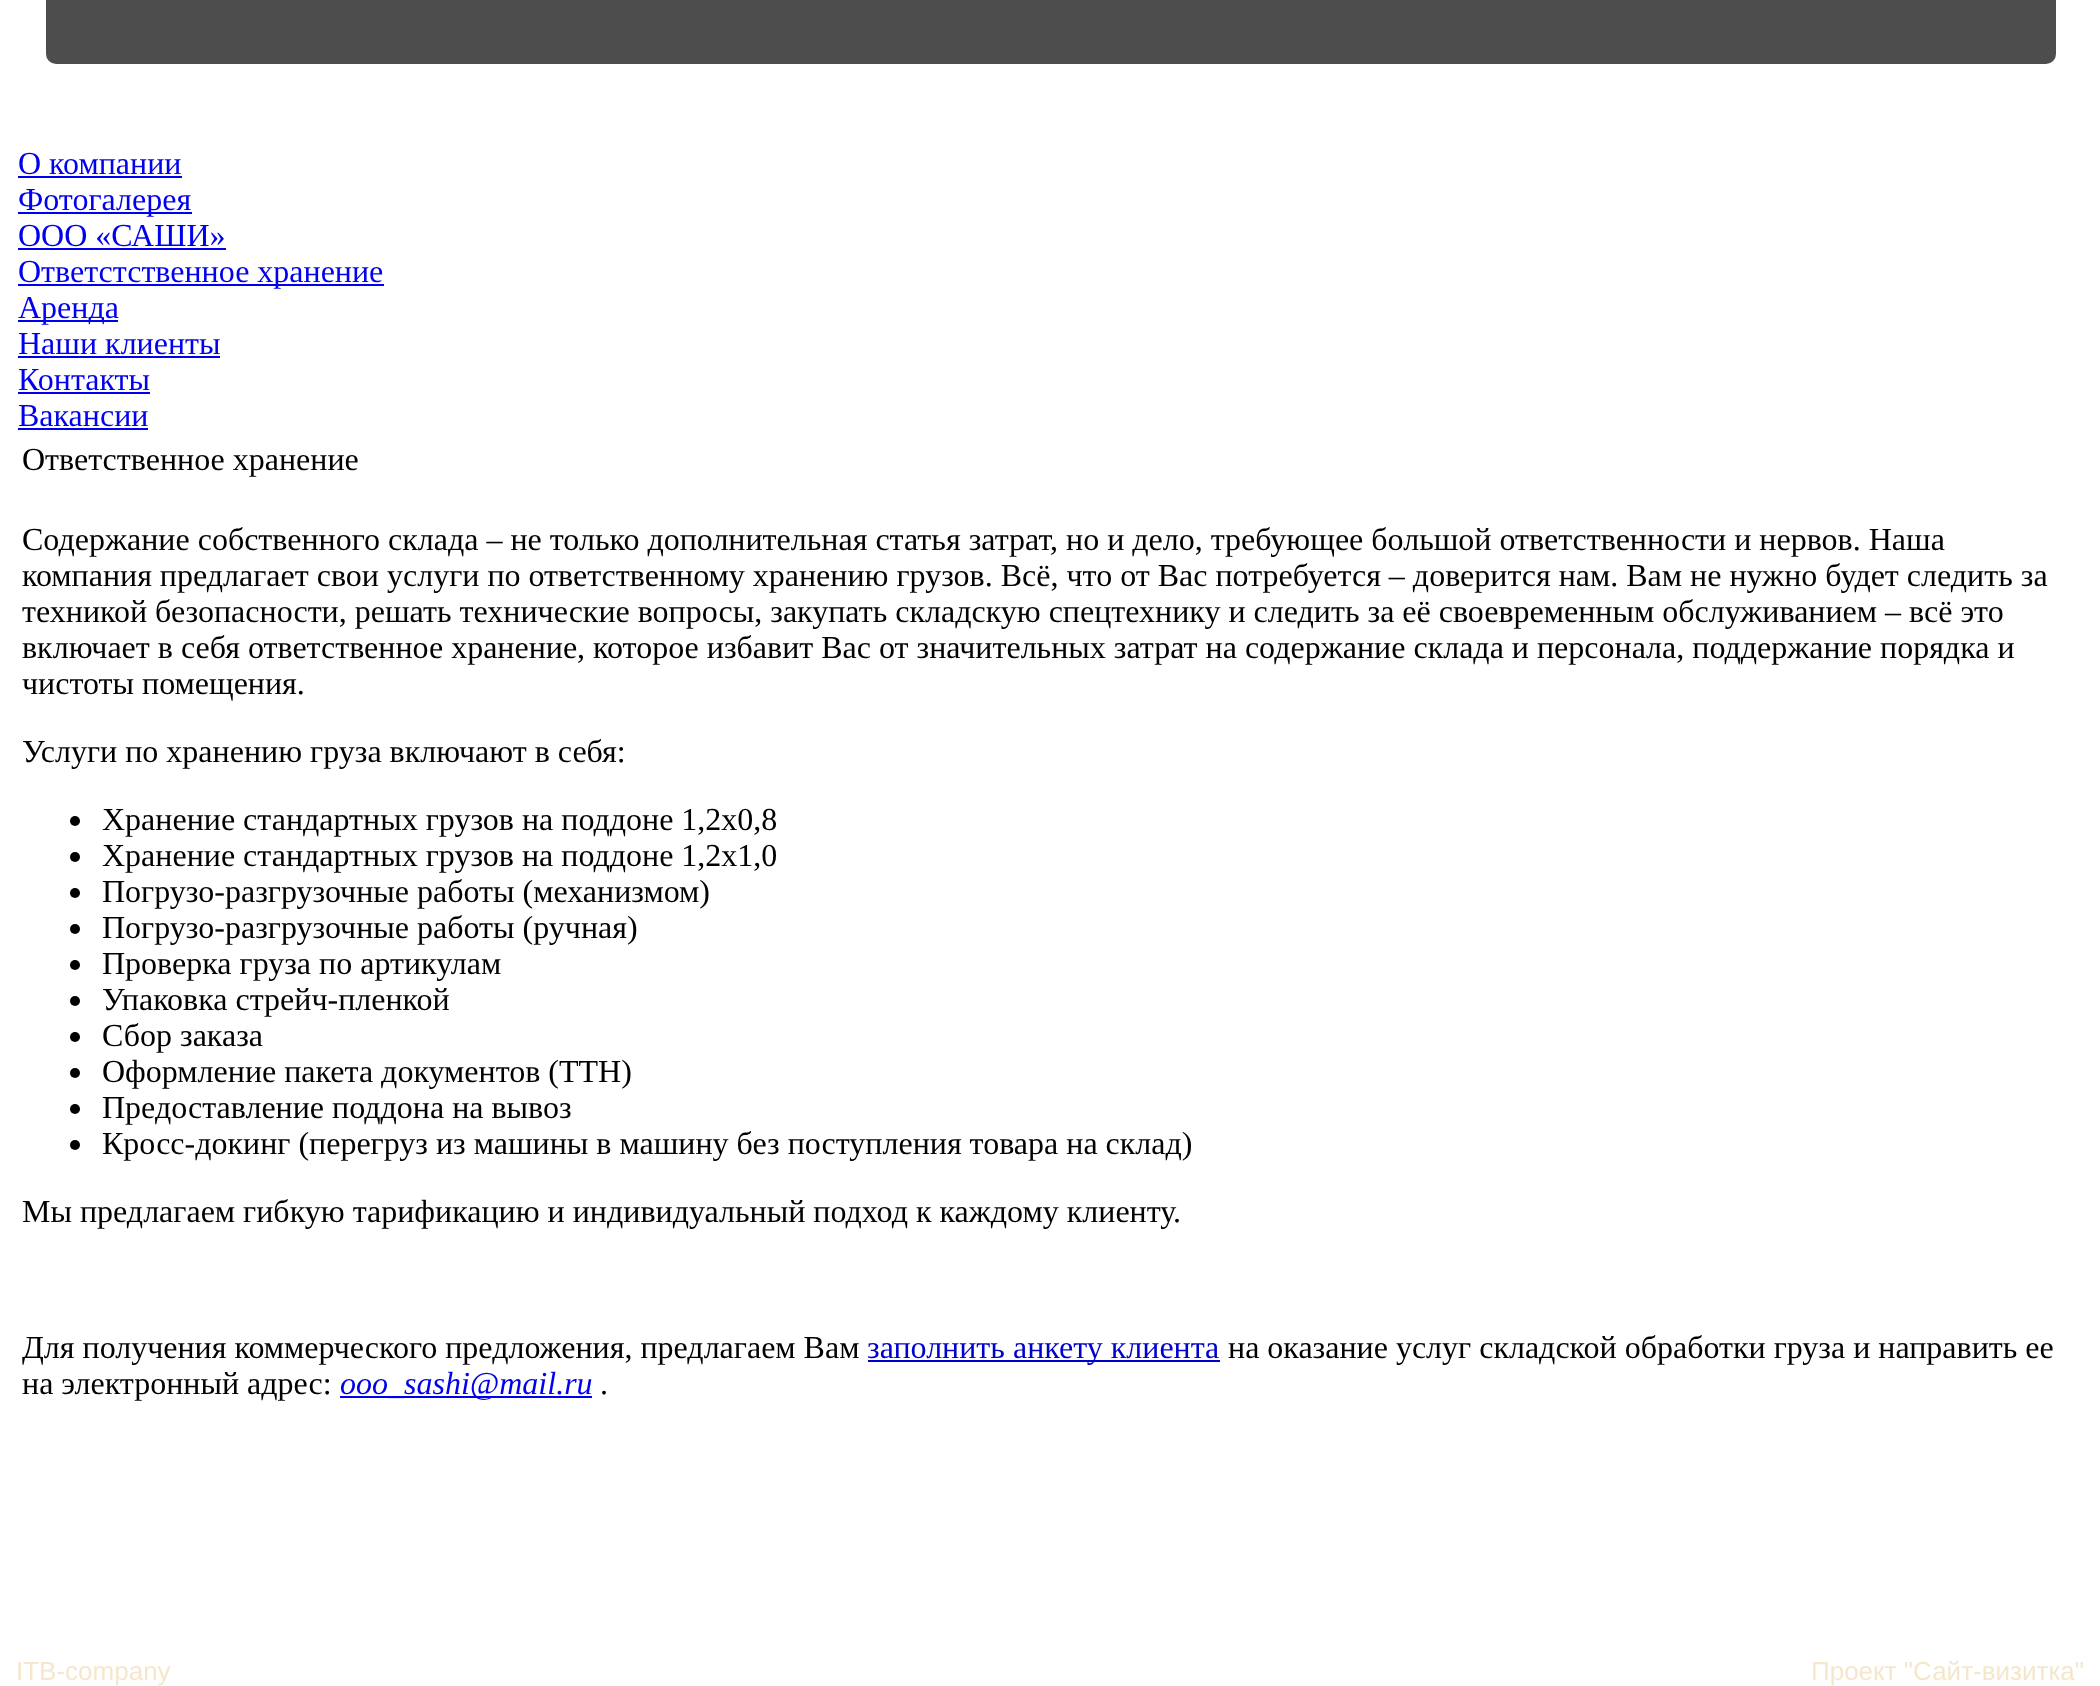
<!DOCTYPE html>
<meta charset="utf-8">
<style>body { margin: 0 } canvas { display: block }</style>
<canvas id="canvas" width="2100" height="1686"></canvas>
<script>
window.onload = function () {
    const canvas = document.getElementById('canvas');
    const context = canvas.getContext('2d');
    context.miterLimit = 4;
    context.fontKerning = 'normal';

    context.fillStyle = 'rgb(255, 255, 255)';
    context.fillRect(0, 0, 2100, 1686);
    context.fillStyle = 'rgb(77, 77, 77)';
    context.beginPath();
    context.roundRect(46, -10, 2010, 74, 10);
    context.fill();
    context.fillStyle = 'rgb(0, 0, 238)';
    context.fillRect(18, 176, 164, 2);
    context.fillRect(18, 212, 174, 2);
    context.fillRect(18, 248, 208, 2);
    context.fillRect(18, 284, 366, 2);
    context.fillRect(18, 320, 100, 2);
    context.fillRect(18, 356, 202, 2);
    context.fillRect(18, 392, 132, 2);
    context.fillRect(18, 428, 130, 2);
    context.fillStyle = 'rgb(0, 0, 0)';
    context.beginPath();
    context.arc(75, 821, 5, 0, 2 * Math.PI);
    context.fill();
    context.beginPath();
    context.arc(75, 857, 5, 0, 2 * Math.PI);
    context.fill();
    context.beginPath();
    context.arc(75, 893, 5, 0, 2 * Math.PI);
    context.fill();
    context.beginPath();
    context.arc(75, 929, 5, 0, 2 * Math.PI);
    context.fill();
    context.beginPath();
    context.arc(75, 965, 5, 0, 2 * Math.PI);
    context.fill();
    context.beginPath();
    context.arc(75, 1001, 5, 0, 2 * Math.PI);
    context.fill();
    context.beginPath();
    context.arc(75, 1037, 5, 0, 2 * Math.PI);
    context.fill();
    context.beginPath();
    context.arc(75, 1073, 5, 0, 2 * Math.PI);
    context.fill();
    context.beginPath();
    context.arc(75, 1109, 5, 0, 2 * Math.PI);
    context.fill();
    context.beginPath();
    context.arc(75, 1145, 5, 0, 2 * Math.PI);
    context.fill();
    context.fillStyle = 'rgb(0, 0, 204)';
    context.fillRect(868, 1360, 352, 2);
    context.fillStyle = 'rgb(0, 0, 238)';
    context.fillRect(340, 1396, 252, 2);
    context.font = '32px Liberation Serif';
    context.fillText('О компании', 18, 174);
    context.fillText('Фотогалерея', 18, 210);
    context.fillText('ООО «САШИ»', 18, 246);
    context.fillText('Ответстственное хранение', 18, 282);
    context.fillText('Аренда', 18, 318);
    context.fillText('Наши клиенты', 18, 354);
    context.fillText('Контакты', 18, 390);
    context.fillText('Вакансии', 18, 426);
    context.fillStyle = 'rgb(0, 0, 0)';
    context.fillText('Ответственное хранение', 22, 470);
    context.fillText('Содержание собственного склада – не только дополнительная статья затрат, но и дело, требующее большой ответственности и нервов. Наша', 22, 550);
    context.fillText('компания предлагает свои услуги по ответственному хранению грузов. Всё, что от Вас потребуется – доверится нам. Вам не нужно будет следить за', 22, 586);
    context.fillText('техникой безопасности, решать технические вопросы, закупать складскую спецтехнику и следить за её своевременным обслуживанием – всё это', 22, 622);
    context.fillText('включает в себя ответственное хранение, которое избавит Вас от значительных затрат на содержание склада и персонала, поддержание порядка и', 22, 658);
    context.fillText('чистоты помещения.', 22, 694);
    context.fillText('Услуги по хранению груза включают в себя:', 22, 762);
    context.fillText('Хранение стандартных грузов на поддоне 1,2х0,8', 102, 830);
    context.fillText('Хранение стандартных грузов на поддоне 1,2х1,0', 102, 866);
    context.fillText('Погрузо-разгрузочные работы (механизмом)', 102, 902);
    context.fillText('Погрузо-разгрузочные работы (ручная)', 102, 938);
    context.fillText('Проверка груза по артикулам', 102, 974);
    context.fillText('Упаковка стрейч-пленкой', 102, 1010);
    context.fillText('Сбор заказа', 102, 1046);
    context.fillText('Оформление пакета документов (ТТН)', 102, 1082);
    context.fillText('Предоставление поддона на вывоз', 102, 1118);
    context.fillText('Кросс-докинг (перегруз из машины в машину без поступления товара на склад)', 102, 1154);
    context.fillText('Мы предлагаем гибкую тарификацию и индивидуальный подход к каждому клиенту.', 22, 1222);
    context.fillText('Для получения коммерческого предложения, предлагаем Вам', 22, 1358);
    context.fillStyle = 'rgb(0, 0, 204)';
    context.fillText('заполнить анкету клиента', 867, 1358);
    context.fillStyle = 'rgb(0, 0, 0)';
    context.fillText('на оказание услуг складской обработки груза и направить ее', 1228, 1358);
    context.fillText('на электронный адрес:', 22, 1394);
    context.font = 'italic 32px Liberation Serif';
    context.fillStyle = 'rgb(0, 0, 238)';
    context.fillText('ooo_sashi@mail.ru', 340, 1394);
    context.font = '32px Liberation Serif';
    context.fillStyle = 'rgb(0, 0, 0)';
    context.fillText('.', 600, 1394);
    context.font = '26px Liberation Sans';
    context.fillStyle = 'rgb(245, 231, 204)';
    context.fillText('ITB-company', 16, 1680);
    context.fillText('Проект "Сайт-визитка"', 1811, 1680);
};
</script>
